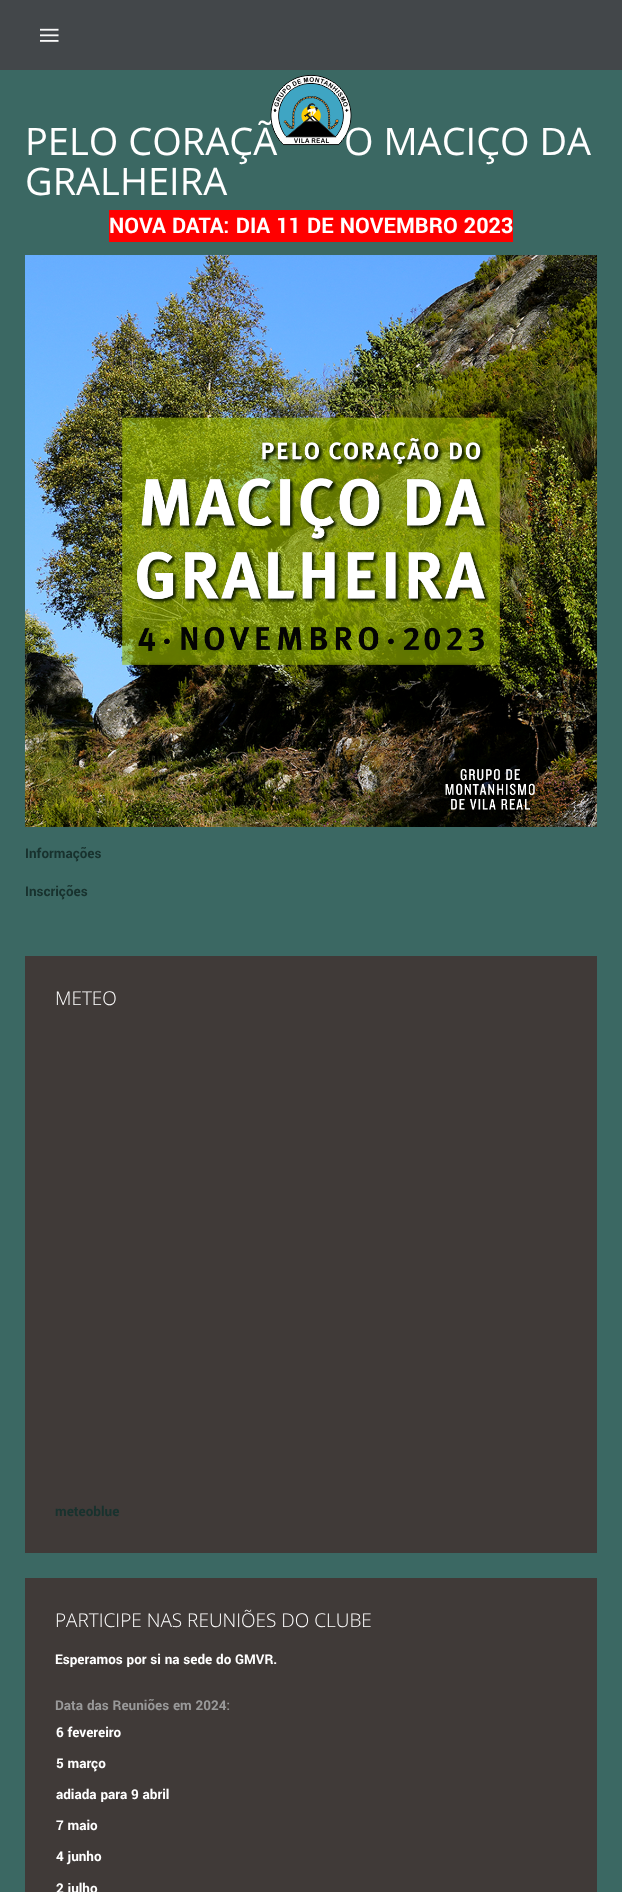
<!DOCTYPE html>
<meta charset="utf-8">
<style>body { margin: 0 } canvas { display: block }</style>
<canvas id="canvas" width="622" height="1892"></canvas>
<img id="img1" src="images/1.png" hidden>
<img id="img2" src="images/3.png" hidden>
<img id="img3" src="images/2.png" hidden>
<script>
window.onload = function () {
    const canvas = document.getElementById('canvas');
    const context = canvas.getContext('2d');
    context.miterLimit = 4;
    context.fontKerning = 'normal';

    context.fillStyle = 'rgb(67, 71, 74)';
    context.fillRect(0, 0, 622, 1892);
    context.drawImage(document.getElementById('img1'), 40, 28, 19, 14);
    context.fillStyle = 'rgb(59, 104, 99)';
    context.fillRect(0, 70, 622, 1822);
    context.fillStyle = 'rgb(255, 0, 0)';
    context.fillRect(109, 210, 404, 32);
    context.drawImage(document.getElementById('img2'), 25, 255, 572, 572);
    context.fillStyle = 'rgb(64, 58, 56)';
    context.fillRect(25, 956, 572, 597);
    context.fillRect(25, 1578, 572, 314);
    context.font = '38px Open Sans';
    context.fillStyle = 'rgb(255, 255, 255)';
    context.fillText('PELO CORAÇÃ', 25, 155);
    context.fillText('O MACIÇO DA', 344, 155);
    context.drawImage(document.getElementById('img3'), 270, 74, 82, 72);
    context.fillText('GRALHEIRA', 25, 195);
    context.font = 'bold 24px Yantramanav';
    context.fillText('NOVA DATA: DIA 11 DE NOVEMBRO 2023', 109, 233);
    context.font = 'bold 15px Yantramanav';
    context.fillStyle = 'rgb(24, 50, 46)';
    context.fillText('Informações', 25, 858);
    context.fillText('Inscrições', 25, 896);
    context.font = '300 19px Open Sans';
    context.fillStyle = 'rgb(255, 255, 255)';
    context.fillText('METEO', 55, 1005);
    context.font = 'bold 15px Yantramanav';
    context.fillStyle = 'rgb(24, 50, 46)';
    context.fillText('meteoblue', 55, 1516);
    context.font = '300 19px Open Sans';
    context.fillStyle = 'rgb(255, 255, 255)';
    context.fillText('PARTICIPE NAS REUNIÕES DO CLUBE', 55, 1627);
    context.font = 'bold 15px Yantramanav';
    context.fillText('Esperamos por si na sede do GMVR.', 55, 1664);
    context.fillStyle = 'rgb(153, 153, 153)';
    context.fillText('Data das Reuniões em 2024:', 55, 1710);
    context.fillStyle = 'rgb(255, 255, 255)';
    context.fillText('6 fevereiro', 56, 1737);
    context.fillText('5 março', 56, 1768);
    context.fillText('adiada para 9 abril', 56, 1799);
    context.fillText('7 maio', 56, 1830);
    context.fillText('4 junho', 56, 1861);
    context.fillText('2 julho', 56, 1893);
};
</script>
